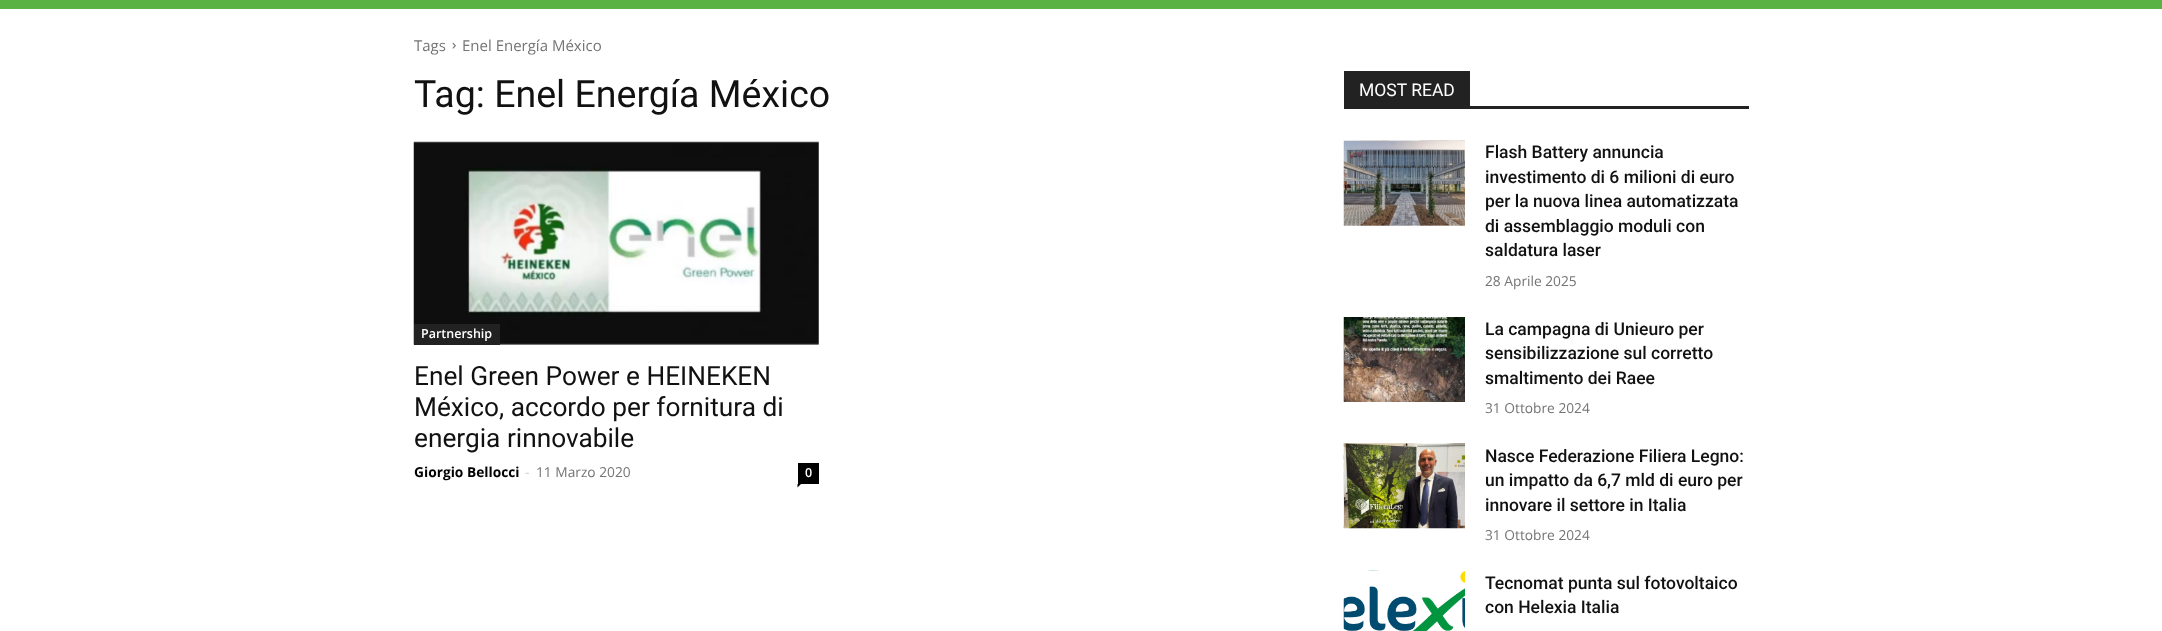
<!DOCTYPE html>
<meta charset="utf-8">
<style>body { margin: 0 } canvas { display: block }</style>
<canvas id="canvas" width="2162" height="631"></canvas>
<img id="img1" src="images/1.png" hidden>
<img id="img2" src="images/2.png" hidden>
<img id="img3" src="images/3.png" hidden>
<img id="img4" src="images/4.png" hidden>
<img id="img5" src="images/5.png" hidden>
<img id="img6" src="images/6.png" hidden>
<script>
window.onload = function () {
    const canvas = document.getElementById('canvas');
    const context = canvas.getContext('2d');
    context.miterLimit = 4;
    context.fontKerning = 'normal';

    context.fillStyle = 'rgb(255, 255, 255)';
    context.fillRect(0, 0, 2162, 631);
    context.fillStyle = 'rgb(91, 178, 68)';
    context.fillRect(0, 0, 2162, 9);
    context.drawImage(document.getElementById('img1'), 452, 42, 4, 7);
    context.drawImage(document.getElementById('img2'), 413, 141, 406, 204);
    context.fillStyle = 'rgb(34, 34, 34)';
    context.fillRect(414, 324, 86, 21);
    context.fillStyle = 'rgb(0, 0, 0)';
    context.fillRect(798, 463, 21, 21);
    context.beginPath();
    context.moveTo(797.5, 484);
    context.lineTo(801, 484);
    context.lineTo(797.5, 487.5);
    context.closePath();
    context.fill();
    context.fillStyle = 'rgb(34, 34, 34)';
    context.fillRect(1344, 106, 405, 3);
    context.fillRect(1344, 71, 126, 35);
    context.drawImage(document.getElementById('img3'), 1343, 140, 122, 86);
    context.drawImage(document.getElementById('img4'), 1343, 317, 122, 85);
    context.drawImage(document.getElementById('img5'), 1343, 443, 122, 86);
    context.drawImage(document.getElementById('img6'), 1343, 570, 122, 61);
    context.font = '15px Open Sans';
    context.fillStyle = 'rgb(116, 116, 116)';
    context.fillText('Tags', 414, 51);
    context.fillText('Enel Energía México', 462, 51);
    context.font = '37.5px Roboto';
    context.fillStyle = 'rgb(17, 17, 17)';
    context.fillText('Tag: Enel Energía México', 414, 107);
    context.font = '600 12.5px Open Sans';
    context.fillStyle = 'rgb(255, 255, 255)';
    context.fillText('Partnership', 421, 338);
    context.font = '26.25px Roboto';
    context.fillStyle = 'rgb(17, 17, 17)';
    context.fillText('Enel Green Power e HEINEKEN', 414, 385);
    context.fillText('México, accordo per fornitura di', 414, 416);
    context.fillText('energia rinnovabile', 414, 447);
    context.font = 'bold 13.75px Open Sans';
    context.fillStyle = 'rgb(0, 0, 0)';
    context.fillText('Giorgio Bellocci', 414, 477);
    context.font = '13.75px Open Sans';
    context.fillStyle = 'rgb(204, 204, 204)';
    context.fillText('-', 525, 477);
    context.fillStyle = 'rgb(116, 116, 116)';
    context.fillText('11 Marzo 2020', 536, 477);
    context.font = '600 12.5px Open Sans';
    context.fillStyle = 'rgb(255, 255, 255)';
    context.fillText('0', 805, 477);
    context.font = '17.5px Roboto';
    context.fillText('MOST READ', 1359, 96);
    context.font = '500 17.5px Roboto';
    context.fillStyle = 'rgb(17, 17, 17)';
    context.fillText('Flash Battery annuncia', 1485, 158);
    context.fillText('investimento di 6 milioni di euro', 1485, 183);
    context.fillText('per la nuova linea automatizzata', 1485, 207);
    context.fillText('di assemblaggio moduli con', 1485, 232);
    context.fillText('saldatura laser', 1485, 256);
    context.font = '13.75px Open Sans';
    context.fillStyle = 'rgb(116, 116, 116)';
    context.fillText('28 Aprile 2025', 1485, 286);
    context.font = '500 17.5px Roboto';
    context.fillStyle = 'rgb(17, 17, 17)';
    context.fillText('La campagna di Unieuro per', 1485, 335);
    context.fillText('sensibilizzazione sul corretto', 1485, 359);
    context.fillText('smaltimento dei Raee', 1485, 384);
    context.font = '13.75px Open Sans';
    context.fillStyle = 'rgb(116, 116, 116)';
    context.fillText('31 Ottobre 2024', 1485, 413);
    context.font = '500 17.5px Roboto';
    context.fillStyle = 'rgb(17, 17, 17)';
    context.fillText('Nasce Federazione Filiera Legno:', 1485, 462);
    context.fillText('un impatto da 6,7 mld di euro per', 1485, 486);
    context.fillText('innovare il settore in Italia', 1485, 511);
    context.font = '13.75px Open Sans';
    context.fillStyle = 'rgb(116, 116, 116)';
    context.fillText('31 Ottobre 2024', 1485, 540);
    context.font = '500 17.5px Roboto';
    context.fillStyle = 'rgb(17, 17, 17)';
    context.fillText('Tecnomat punta sul fotovoltaico', 1485, 589);
    context.fillText('con Helexia Italia', 1485, 613);
};
</script>
